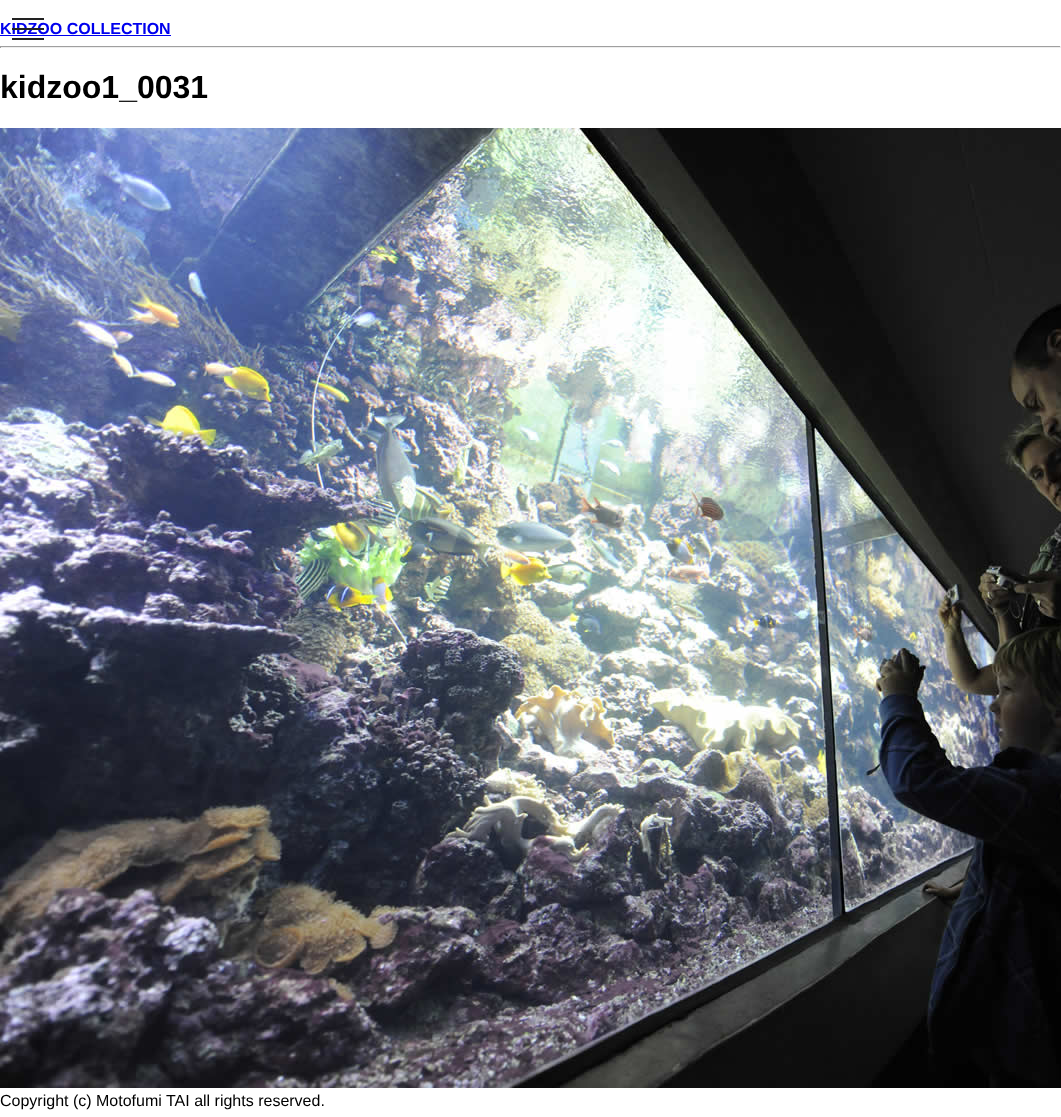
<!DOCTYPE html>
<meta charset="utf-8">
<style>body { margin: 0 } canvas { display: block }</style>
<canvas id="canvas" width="1061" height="1117"></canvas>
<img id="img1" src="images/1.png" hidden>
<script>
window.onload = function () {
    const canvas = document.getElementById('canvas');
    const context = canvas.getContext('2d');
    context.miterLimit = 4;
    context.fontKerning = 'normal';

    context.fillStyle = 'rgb(255, 255, 255)';
    context.fillRect(0, 0, 1061, 1117);
    context.fillStyle = 'rgb(34, 34, 34)';
    context.fillRect(12, 18, 32, 2);
    context.fillRect(12, 38, 32, 2);
    context.fillStyle = 'rgb(0, 0, 238)';
    context.fillRect(0, 35, 171, 1);
    context.fillStyle = 'rgb(159, 159, 159)';
    context.fillRect(0, 46, 1061, 1);
    context.fillStyle = 'rgb(238, 238, 238)';
    context.fillRect(1060, 46, 1, 2);
    context.fillRect(0, 47, 1061, 1);
    context.fillStyle = 'rgb(159, 159, 159)';
    context.fillRect(0, 46, 1, 2);
    context.drawImage(document.getElementById('img1'), 0, 128, 1061, 960);
    context.font = 'bold 16px Liberation Sans';
    context.fillStyle = 'rgb(0, 0, 238)';
    context.fillText('KIDZOO COLLECTION', 0, 34);
    context.fillStyle = 'rgb(34, 34, 34)';
    context.fillRect(12, 28, 32, 2);
    context.font = 'bold 32px Liberation Sans';
    context.fillStyle = 'rgb(0, 0, 0)';
    context.fillText('kidzoo1_0031', 0, 98);
    context.font = '16px Liberation Sans';
    context.fillText('Copyright (c) Motofumi TAI all rights reserved.', 0, 1106);
};
</script>
